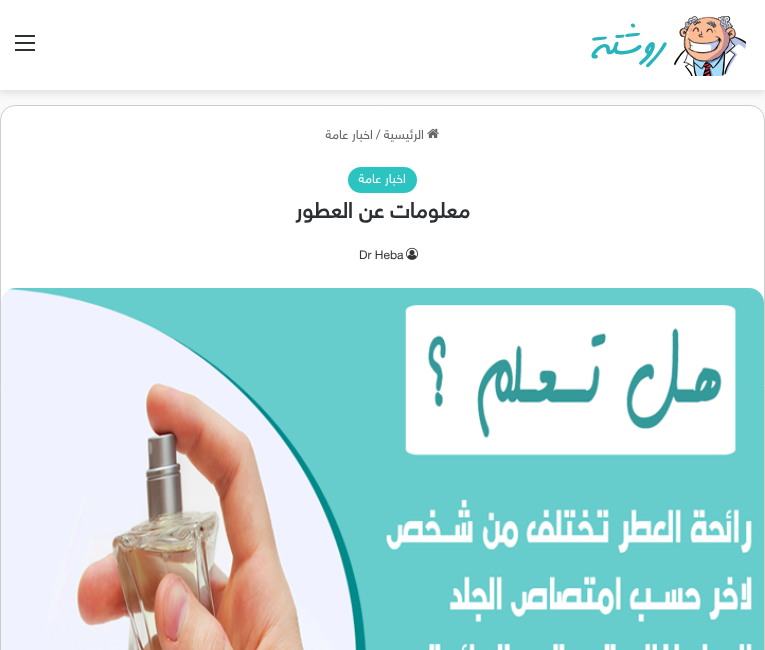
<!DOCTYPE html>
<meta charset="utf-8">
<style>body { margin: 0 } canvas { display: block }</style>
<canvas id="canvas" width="765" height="650"></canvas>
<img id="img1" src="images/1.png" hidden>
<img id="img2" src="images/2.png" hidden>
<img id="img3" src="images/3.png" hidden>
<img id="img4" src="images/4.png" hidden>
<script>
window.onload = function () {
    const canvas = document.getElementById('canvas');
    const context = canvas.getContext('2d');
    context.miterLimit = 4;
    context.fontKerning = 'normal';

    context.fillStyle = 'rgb(249, 249, 249)';
    context.fillRect(0, 0, 765, 650);
    context.fillStyle = 'rgba(0, 0, 0, 0.1)';
    context.filter = 'blur(3.5px)';
    context.beginPath();
    context.rect(0, 3, 765, 90);
    context.fill();
    context.filter = 'none';
    context.fillStyle = 'rgb(255, 255, 255)';
    context.fillRect(0, 0, 765, 90);
    context.drawImage(document.getElementById('img1'), 591, 16, 155, 60);
    context.fillStyle = 'rgb(44, 47, 52)';
    context.fillRect(15, 42, 20, 2);
    context.fillRect(15, 35, 20, 2);
    context.fillRect(15, 49, 20, 2);
    context.fillStyle = 'rgb(255, 255, 255)';
    context.beginPath();
    context.roundRect(0.5, 105.5, 764, 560, 14.5);
    context.fill();
    context.strokeStyle = 'rgb(204, 204, 204)';
    context.stroke();
    context.drawImage(document.getElementById('img2'), 427, 128, 12, 11);
    context.fillStyle = 'rgb(43, 196, 193)';
    context.beginPath();
    context.roundRect(348, 167, 69, 26, 13);
    context.fill();
    context.drawImage(document.getElementById('img3'), 406, 247, 12, 13);
    context.drawImage(document.getElementById('img4'), 1, 288, 763, 362);
    context.direction = 'rtl';
    context.font = '13px "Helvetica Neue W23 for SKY"';
    context.fillStyle = 'rgb(102, 102, 102)';
    context.fillText('الرئيسية', 424, 139);
    context.direction = 'ltr';
    context.fillText('/', 376, 139);
    context.direction = 'rtl';
    context.fillText('اخبار عامة', 373, 139);
    context.fillStyle = 'rgb(255, 255, 255)';
    context.fillText('اخبار عامة', 406, 183);
    context.font = 'bold 22px "Helvetica Neue W23 for SKY"';
    context.fillStyle = 'rgb(44, 47, 52)';
    context.fillText('معلومات عن العطور', 470, 218);
    context.direction = 'ltr';
    context.font = '12px "Helvetica Neue W23 for SKY"';
    context.fillStyle = 'rgb(51, 51, 51)';
    context.fillText('Dr Heba', 359, 259);
};
</script>
